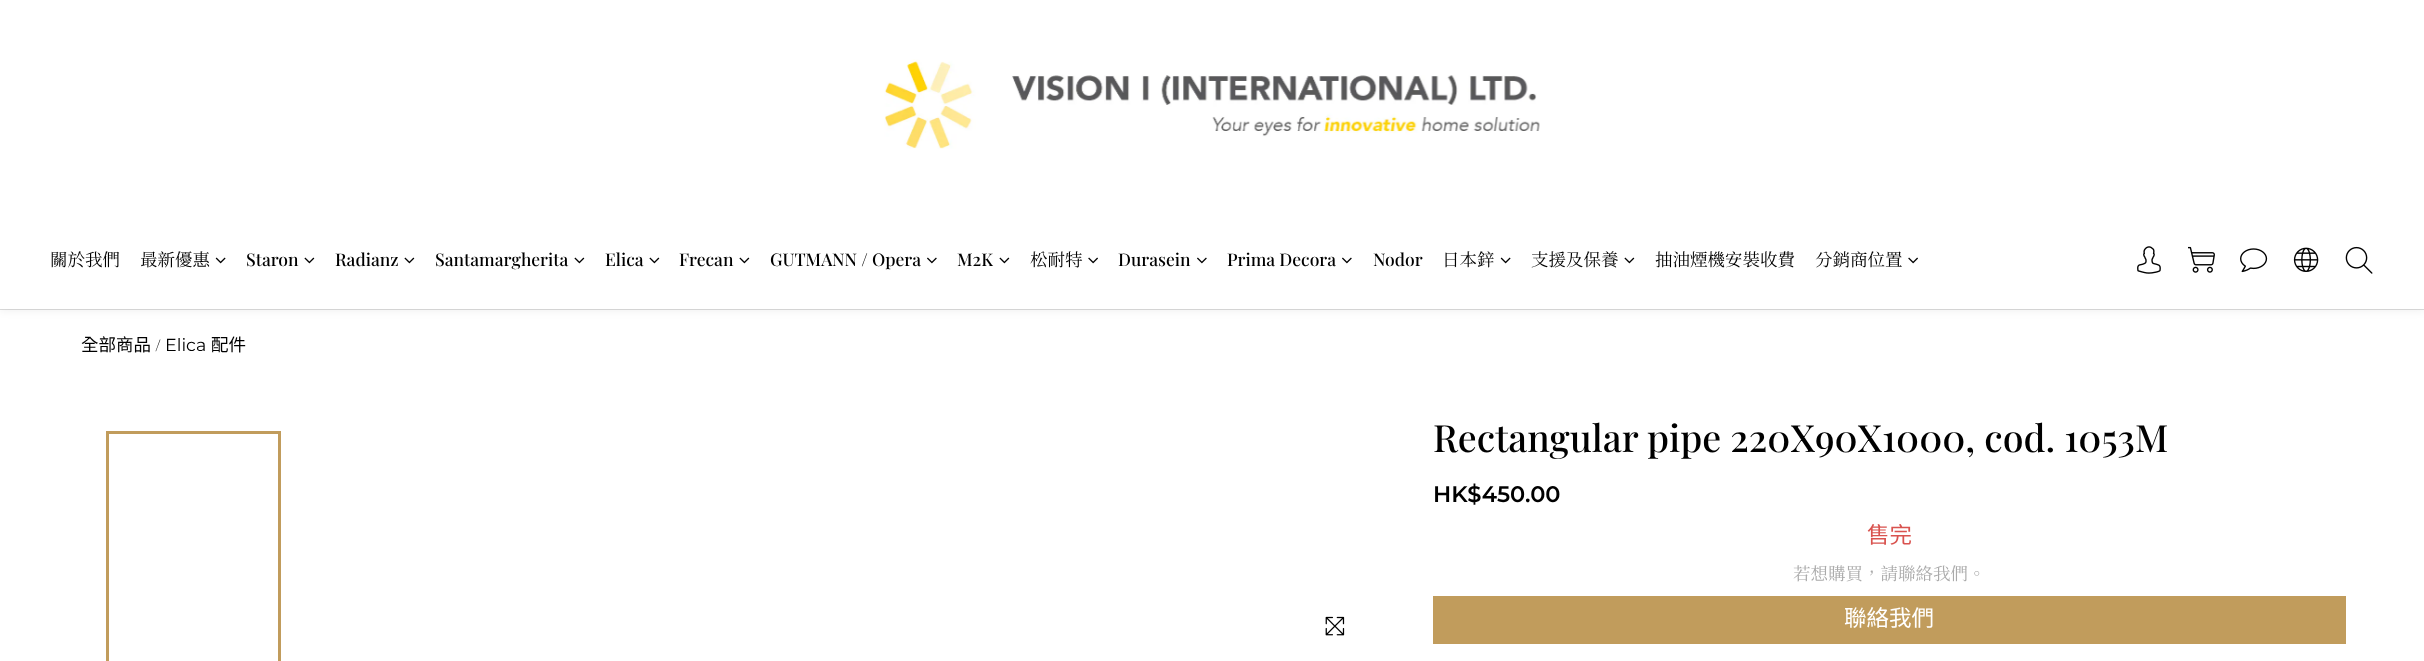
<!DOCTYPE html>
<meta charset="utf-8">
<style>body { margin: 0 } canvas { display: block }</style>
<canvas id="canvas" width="2424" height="661"></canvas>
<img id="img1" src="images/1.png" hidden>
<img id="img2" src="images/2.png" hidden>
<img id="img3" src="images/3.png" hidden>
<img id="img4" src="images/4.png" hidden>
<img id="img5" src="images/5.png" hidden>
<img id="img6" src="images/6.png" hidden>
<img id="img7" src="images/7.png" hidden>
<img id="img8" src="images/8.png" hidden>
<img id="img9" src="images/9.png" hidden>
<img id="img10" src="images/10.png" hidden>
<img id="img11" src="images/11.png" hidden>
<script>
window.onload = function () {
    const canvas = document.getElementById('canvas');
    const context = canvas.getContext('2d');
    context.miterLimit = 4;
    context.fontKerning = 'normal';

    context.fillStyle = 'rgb(255, 255, 255)';
    context.fillRect(0, 0, 2424, 661);
    context.fillStyle = 'rgb(221, 221, 221)';
    context.fillRect(0, 309, 2424, 1);
    context.fillStyle = 'rgba(0, 0, 0, 0.06)';
    context.filter = 'blur(4px)';
    context.beginPath();
    context.rect(0, 3, 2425, 308);
    context.fill();
    context.filter = 'none';
    context.fillStyle = 'rgb(255, 255, 255)';
    context.fillRect(0, 0, 2424, 309);
    context.drawImage(document.getElementById('img1'), 884, 59, 656, 90);
    context.drawImage(document.getElementById('img2'), 215, 257, 11, 7);
    context.drawImage(document.getElementById('img3'), 304, 257, 11, 7);
    context.drawImage(document.getElementById('img3'), 404, 257, 11, 7);
    context.drawImage(document.getElementById('img3'), 574, 257, 11, 7);
    context.drawImage(document.getElementById('img3'), 649, 257, 11, 7);
    context.drawImage(document.getElementById('img3'), 739, 257, 11, 7);
    context.drawImage(document.getElementById('img4'), 927, 257, 10, 7);
    context.drawImage(document.getElementById('img3'), 999, 257, 11, 7);
    context.drawImage(document.getElementById('img5'), 1088, 257, 10, 7);
    context.drawImage(document.getElementById('img4'), 1197, 257, 10, 7);
    context.drawImage(document.getElementById('img4'), 1342, 257, 10, 7);
    context.drawImage(document.getElementById('img2'), 1500, 257, 11, 7);
    context.drawImage(document.getElementById('img3'), 1624, 257, 11, 7);
    context.drawImage(document.getElementById('img5'), 1908, 257, 10, 7);
    context.drawImage(document.getElementById('img6'), 2137, 246, 24, 28);
    context.drawImage(document.getElementById('img7'), 2188, 246, 27, 27);
    context.drawImage(document.getElementById('img8'), 2240, 248, 28, 25);
    context.drawImage(document.getElementById('img9'), 2293, 247, 26, 25);
    context.drawImage(document.getElementById('img10'), 2345, 246, 28, 28);
    context.strokeStyle = 'rgb(193, 156, 92)';
    context.lineWidth = 3;
    context.strokeRect(107.5, 432.5, 172, 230);
    context.drawImage(document.getElementById('img11'), 1325, 616, 20, 20);
    context.fillStyle = 'rgb(193, 156, 92)';
    context.fillRect(1433, 596, 913, 48);
    context.font = '17.5px Noto Serif TC';
    context.fillStyle = 'rgb(0, 0, 0)';
    context.fillText('關於我們', 50, 266);
    context.fillText('最新優惠', 140, 266);
    context.font = '500 17.5px Playfair Display';
    context.fillText('Staron', 246, 266);
    context.fillText('Radianz', 335, 266);
    context.fillText('Santamargherita', 435, 266);
    context.fillText('Elica', 605, 266);
    context.fillText('Frecan', 679, 266);
    context.fillText('GUTMANN / Opera', 770, 266);
    context.fillText('M2K', 957, 266);
    context.font = '17.5px Noto Serif TC';
    context.fillText('松耐特', 1030, 266);
    context.font = '500 17.5px Playfair Display';
    context.fillText('Durasein', 1118, 266);
    context.fillText('Prima Decora', 1227, 266);
    context.fillText('Nodor', 1373, 266);
    context.font = '17.5px Noto Serif TC';
    context.fillText('日本鋅', 1442, 266);
    context.fillText('支援及保養', 1531, 266);
    context.fillText('抽油煙機安裝收費', 1655, 266);
    context.fillText('分銷商位置', 1815, 266);
    context.font = '17.5px Noto Sans TC';
    context.fillText('全部商品', 81, 351);
    context.font = '500 16px Playfair Display';
    context.fillText('/', 155, 351);
    context.font = '17.5px Montserrat';
    context.fillText('Elica', 165, 351);
    context.font = '17.5px Noto Sans TC';
    context.fillText('配件', 211, 351);
    context.font = '500 37.5px Playfair Display';
    context.fillText('Rectangular pipe 220X90X1000, cod. 1053M', 1433, 452);
    context.font = '600 22.5px Montserrat';
    context.fillText('HK$450.00', 1433, 502);
    context.font = '22.5px Noto Sans TC';
    context.fillStyle = 'rgb(217, 83, 79)';
    context.fillText('售完', 1867, 543);
    context.font = '17.5px Noto Serif TC';
    context.fillStyle = 'rgb(170, 170, 170)';
    context.fillText('若想購買，請聯絡我們。', 1793, 580);
    context.font = '22.5px Noto Sans TC';
    context.fillStyle = 'rgb(255, 255, 255)';
    context.fillText('聯絡我們', 1844, 626);
};
</script>
